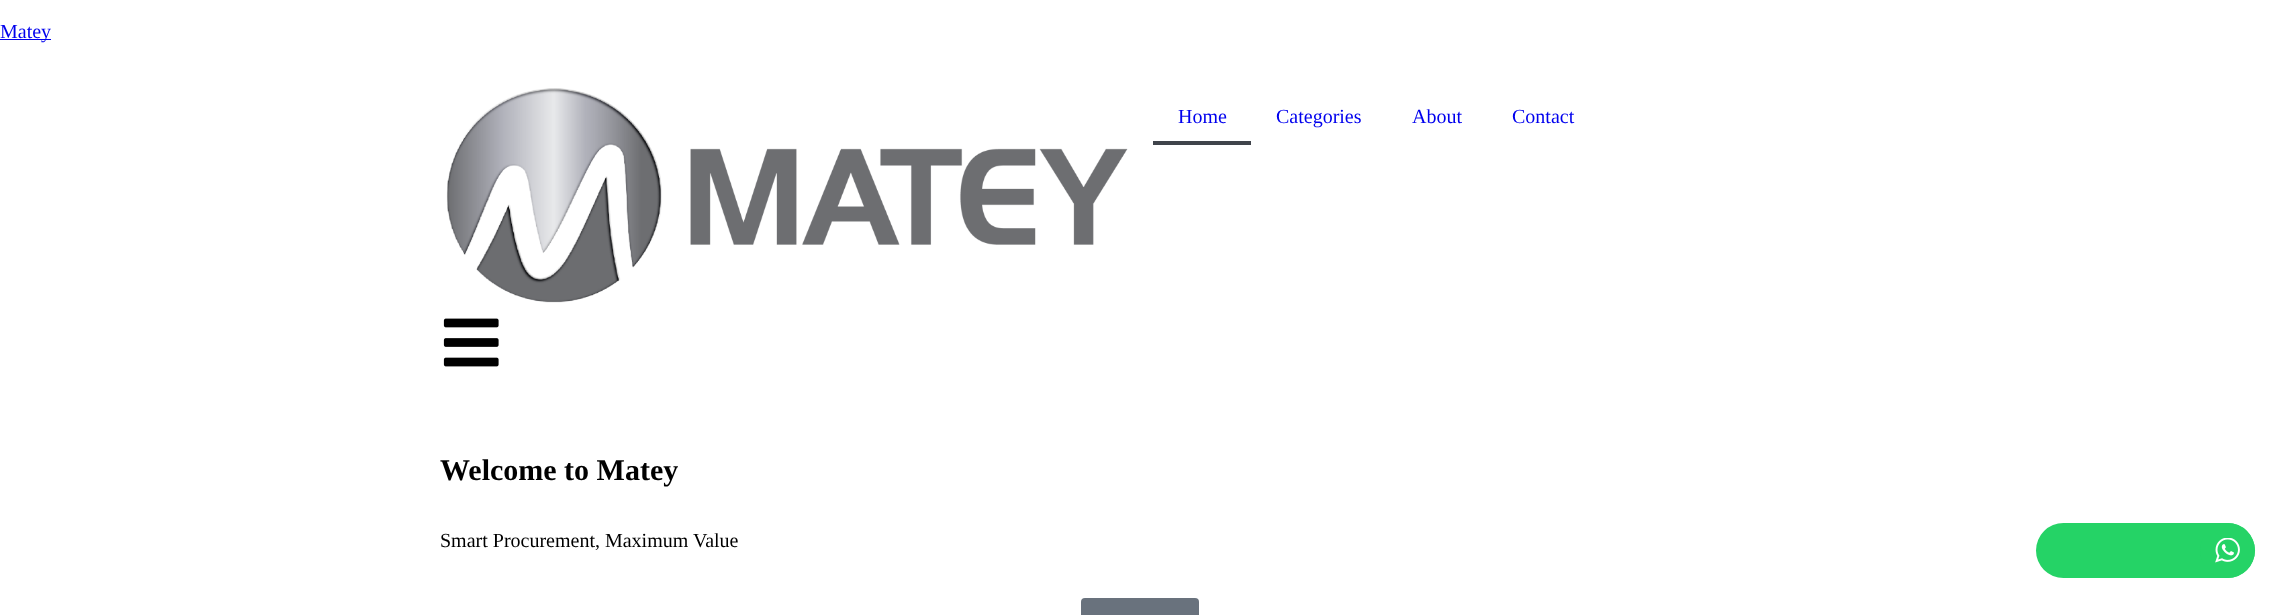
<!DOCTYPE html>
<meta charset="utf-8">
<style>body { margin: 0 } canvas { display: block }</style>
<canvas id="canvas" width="2280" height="615"></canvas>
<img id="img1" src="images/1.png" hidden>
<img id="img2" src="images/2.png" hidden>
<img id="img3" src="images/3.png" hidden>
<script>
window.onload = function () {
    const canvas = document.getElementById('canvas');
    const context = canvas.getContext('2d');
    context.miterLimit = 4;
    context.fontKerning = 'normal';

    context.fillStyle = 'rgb(255, 255, 255)';
    context.fillRect(0, 0, 2280, 615);
    context.fillStyle = 'rgb(0, 0, 238)';
    context.fillRect(0, 39, 51, 1);
    context.drawImage(document.getElementById('img1'), 446, 88, 682, 215);
    context.drawImage(document.getElementById('img2'), 443, 318, 56, 49);
    context.fillStyle = 'rgb(63, 68, 75)';
    context.fillRect(1153, 141, 98, 4);
    context.fillStyle = 'rgb(105, 114, 125)';
    context.beginPath();
    context.roundRect(1081, 598, 118, 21, 4);
    context.fill();
    context.fillStyle = 'rgb(37, 211, 102)';
    context.beginPath();
    context.roundRect(2036, 523, 219, 55, 27.5);
    context.fill();
    context.beginPath();
    context.arc(2227.5, 550.5, 27.5, 0, 2 * Math.PI);
    context.fill();
    context.drawImage(document.getElementById('img3'), 2215, 538, 25, 25);
    context.font = '20px Liberation Serif';
    context.fillStyle = 'rgb(0, 0, 238)';
    context.fillText('Matey', 0, 38);
    context.fillText('Home', 1178, 123);
    context.fillText('Categories', 1276, 123);
    context.fillText('About', 1412, 123);
    context.fillText('Contact', 1512, 123);
    context.font = 'bold 30px Liberation Serif';
    context.fillStyle = 'rgb(0, 0, 0)';
    context.fillText('Welcome to Matey', 440, 480);
    context.font = '20px Liberation Serif';
    context.fillText('Smart Procurement, Maximum Value', 440, 547);
};
</script>
